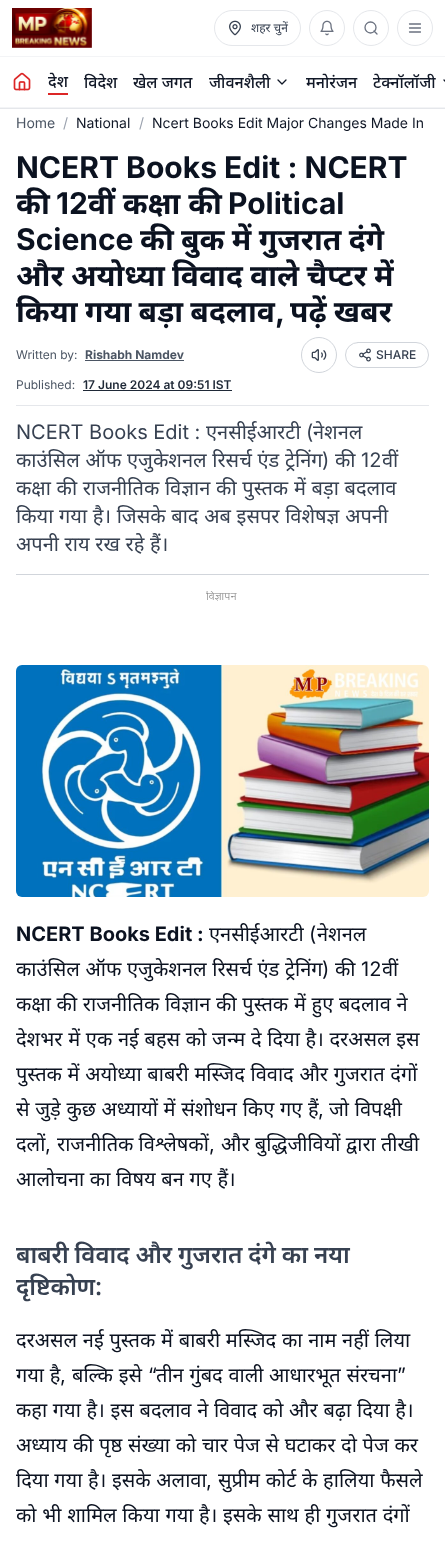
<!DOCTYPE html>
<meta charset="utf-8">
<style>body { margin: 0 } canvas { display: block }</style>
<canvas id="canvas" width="445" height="1548"></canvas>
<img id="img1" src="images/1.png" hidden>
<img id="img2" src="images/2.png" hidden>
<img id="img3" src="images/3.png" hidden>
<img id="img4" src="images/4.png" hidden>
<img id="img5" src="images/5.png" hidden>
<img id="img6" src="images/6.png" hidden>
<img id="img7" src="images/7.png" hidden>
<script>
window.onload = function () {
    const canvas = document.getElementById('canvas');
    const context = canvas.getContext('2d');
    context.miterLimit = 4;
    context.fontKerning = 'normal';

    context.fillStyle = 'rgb(255, 255, 255)';
    context.fillRect(0, 0, 445, 1548);
    context.fillStyle = 'rgb(229, 231, 235)';
    context.fillRect(0, 108, 445, 1);
    context.drawImage(document.getElementById('img1'), 12, 8, 80, 40);
    context.beginPath();
    context.arc(327, 28, 17.5, 0, 2 * Math.PI);
    context.strokeStyle = 'rgb(229, 231, 235)';
    context.stroke();
    context.drawImage(document.getElementById('img2'), 320, 20, 14, 16);
    context.beginPath();
    context.arc(371, 28, 17.5, 0, 2 * Math.PI);
    context.stroke();
    context.beginPath();
    context.arc(370.5, 27.5, 5.5, 0, 2 * Math.PI);
    context.strokeStyle = 'rgb(107, 114, 128)';
    context.lineWidth = 1.3;
    context.stroke();
    context.beginPath();
    context.arc(415, 28, 17.5, 0, 2 * Math.PI);
    context.strokeStyle = 'rgb(229, 231, 235)';
    context.lineWidth = 1;
    context.stroke();
    context.beginPath();
    context.moveTo(377, 34);
    context.lineTo(374, 31);
    context.moveTo(409.5, 24);
    context.lineTo(420.5, 24);
    context.moveTo(409.5, 28);
    context.lineTo(420.5, 28);
    context.moveTo(409.5, 32);
    context.lineTo(420.5, 32);
    context.strokeStyle = 'rgb(107, 114, 128)';
    context.lineWidth = 1.3;
    context.lineCap = 'round';
    context.lineJoin = 'round';
    context.stroke();
    context.beginPath();
    context.roundRect(214.5, 10.5, 86, 35, 17.5);
    context.strokeStyle = 'rgb(229, 231, 235)';
    context.lineWidth = 1;
    context.lineJoin = 'miter';
    context.stroke();
    context.drawImage(document.getElementById('img3'), 229, 20, 12, 16);
    context.fillStyle = 'rgb(243, 244, 246)';
    context.fillRect(0, 56, 445, 1);
    context.drawImage(document.getElementById('img4'), 13, 72, 18, 19);
    context.fillStyle = 'rgb(220, 38, 38)';
    context.fillRect(48, 93, 20, 2);
    context.beginPath();
    context.moveTo(278, 80);
    context.lineTo(282, 84);
    context.lineTo(286, 80);
    context.strokeStyle = 'rgb(17, 24, 39)';
    context.lineWidth = 1.3;
    context.lineJoin = 'round';
    context.stroke();
    context.beginPath();
    context.moveTo(444, 80);
    context.lineTo(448, 84);
    context.lineTo(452, 80);
    context.stroke();
    context.fillStyle = 'rgb(243, 244, 246)';
    context.fillRect(0, 107, 445, 1);
    context.fillStyle = 'rgb(75, 85, 99)';
    context.fillRect(85, 360, 99, 1);
    context.beginPath();
    context.arc(319, 355, 17.5, 0, 2 * Math.PI);
    context.strokeStyle = 'rgb(209, 213, 219)';
    context.lineWidth = 1;
    context.stroke();
    context.drawImage(document.getElementById('img5'), 311, 349, 16, 12);
    context.beginPath();
    context.roundRect(345.5, 342.5, 83, 25, 12.5);
    context.lineJoin = 'miter';
    context.stroke();
    context.drawImage(document.getElementById('img6'), 359, 348, 12, 14);
    context.fillStyle = 'rgb(229, 231, 235)';
    context.fillRect(16, 405, 413, 1);
    context.fillStyle = 'rgb(31, 41, 55)';
    context.fillRect(83, 390, 149, 1);
    context.fillStyle = 'rgb(209, 213, 219)';
    context.fillRect(16, 574, 413, 1);
    context.drawImage(document.getElementById('img7'), 16, 665, 413, 232);
    context.font = '12px Noto Sans';
    context.fillStyle = 'rgb(55, 65, 81)';
    context.fillText('शहर चुनें', 251, 32);
    context.font = '500 16px Noto Sans';
    context.fillStyle = 'rgb(17, 24, 39)';
    context.fillText('देश', 48, 87);
    context.fillText('विदेश', 84, 88);
    context.fillText('खेल जगत', 133, 88);
    context.fillText('जीवनशैली', 209, 88);
    context.fillText('मनोरंजन', 306, 88);
    context.fillText('टेक्नॉलॉजी', 373, 88);
    context.font = '14px Inter';
    context.fillStyle = 'rgb(75, 85, 99)';
    context.fillText('Home', 16, 128);
    context.fillStyle = 'rgb(156, 163, 175)';
    context.fillText('/', 63, 128);
    context.fillStyle = 'rgb(17, 24, 39)';
    context.fillText('National', 76, 128);
    context.fillStyle = 'rgb(156, 163, 175)';
    context.fillText('/', 139, 128);
    context.fillStyle = 'rgb(17, 24, 39)';
    context.fillText('Ncert Books Edit Major Changes Made In', 152, 128);
    context.font = 'bold 30px Inter';
    context.fillStyle = 'rgb(11, 18, 32)';
    context.fillText('NCERT Books Edit : NCERT', 16, 178);
    context.font = 'bold 30px Noto Sans';
    context.fillText('की', 16, 214);
    context.font = 'bold 30px Inter';
    context.fillText('12', 56, 214);
    context.font = 'bold 30px Noto Sans';
    context.fillText('वीं कक्षा की', 88, 214);
    context.font = 'bold 30px Inter';
    context.fillText('Political', 228, 214);
    context.fillText('Science', 16, 250);
    context.wordSpacing = '-0.5px';
    context.font = 'bold 30px Noto Sans';
    context.fillText('की बुक में गुजरात दंगे', 140, 250);
    context.fillText('और अयोध्या विवाद वाले चैप्टर में', 16, 286);
    context.fillText('किया गया बड़ा बदलाव', 16, 322);
    context.wordSpacing = '0px';
    context.font = 'bold 30px Inter';
    context.fillText(',', 275, 322);
    context.wordSpacing = '-0.5px';
    context.font = 'bold 30px Noto Sans';
    context.fillText('पढ़ें खबर', 290, 322);
    context.wordSpacing = '0px';
    context.font = '12px Inter';
    context.fillStyle = 'rgb(75, 85, 99)';
    context.fillText('Written by:', 16, 359);
    context.font = 'bold 12px Inter';
    context.fillText('Rishabh Namdev', 85, 359);
    context.font = '500 12px Inter';
    context.fillStyle = 'rgb(55, 65, 81)';
    context.fillText('SHARE', 376, 359);
    context.font = '12px Inter';
    context.fillStyle = 'rgb(75, 85, 99)';
    context.fillText('Published:', 16, 389);
    context.font = '600 12px Inter';
    context.fillStyle = 'rgb(31, 41, 55)';
    context.fillText('17 June 2024 at 09:51 IST', 83, 389);
    context.font = '20px Noto Sans';
    context.fillStyle = 'rgb(55, 65, 81)';
    context.fillText('एनसीईआरटी', 206, 439);
    context.font = '20px Inter';
    context.fillText('NCERT Books Edit :', 16, 439);
    context.fillText('(', 306, 439);
    context.font = '20px Noto Sans';
    context.fillText('नेशनल', 313, 439);
    context.wordSpacing = '0.5px';
    context.fillText('काउंसिल ऑफ एजुकेशनल रिसर्च एंड ट्रेनिंग', 16, 467);
    context.wordSpacing = '0px';
    context.font = '20px Inter';
    context.fillText(')', 322, 467);
    context.font = '20px Noto Sans';
    context.fillText('की', 335, 467);
    context.font = '20px Inter';
    context.fillText('12', 361, 467);
    context.font = '20px Noto Sans';
    context.fillText('वीं', 382, 467);
    context.wordSpacing = '0.5px';
    context.fillText('कक्षा की राजनीतिक विज्ञान की पुस्तक में बड़ा बदलाव', 16, 495);
    context.fillText('किया गया है। जिसके बाद अब इसपर विशेषज्ञ अपनी', 16, 523);
    context.fillText('अपनी राय रख रहे हैं।', 16, 551);
    context.save();
    context.beginPath();
    context.rect(63, 591, 320, 50);
    context.clip();
    context.letterSpacing = '0.25px';
    context.wordSpacing = '0px';
    context.font = '300 11px Noto Sans';
    context.fillStyle = 'rgb(119, 119, 119)';
    context.fillText('विज्ञापन', 206, 600);
    context.restore();
    context.wordSpacing = '0px';
    context.font = 'bold 20px Inter';
    context.fillStyle = 'rgb(11, 18, 32)';
    context.fillText('NCERT Books Edit :', 16, 941);
    context.font = '20px Noto Sans';
    context.fillText('एनसीईआरटी', 209, 941);
    context.font = '20px Inter';
    context.fillText('(', 309, 941);
    context.font = '20px Noto Sans';
    context.fillText('नेशनल', 317, 941);
    context.wordSpacing = '0.5px';
    context.fillText('काउंसिल ऑफ एजुकेशनल रिसर्च एंड ट्रेनिंग', 16, 976);
    context.wordSpacing = '0px';
    context.font = '20px Inter';
    context.fillText(')', 322, 976);
    context.font = '20px Noto Sans';
    context.fillText('की', 335, 976);
    context.font = '20px Inter';
    context.fillText('12', 361, 976);
    context.font = '20px Noto Sans';
    context.fillText('वीं', 382, 976);
    context.wordSpacing = '0.5px';
    context.fillText('कक्षा की राजनीतिक विज्ञान की पुस्तक में हुए बदलाव ने', 16, 1011);
    context.fillText('देशभर में एक नई बहस को जन्म दे दिया है। दरअसल इस', 16, 1046);
    context.fillText('पुस्तक में अयोध्या बाबरी मस्जिद विवाद और गुजरात दंगों', 16, 1081);
    context.fillText('से जुड़े कुछ अध्यायों में संशोधन किए गए हैं', 16, 1116);
    context.wordSpacing = '0px';
    context.font = '20px Inter';
    context.fillText(',', 318, 1116);
    context.wordSpacing = '0.5px';
    context.font = '20px Noto Sans';
    context.fillText('जो विपक्षी', 329, 1116);
    context.wordSpacing = '0px';
    context.fillText('दलों', 16, 1151);
    context.font = '20px Inter';
    context.fillText(',', 45, 1151);
    context.font = '20px Noto Sans';
    context.fillText('राजनीतिक विश्लेषकों', 57, 1151);
    context.font = '20px Inter';
    context.fillText(',', 209, 1151);
    context.font = '20px Noto Sans';
    context.fillText('और बुद्धिजीवियों द्वारा तीखी', 221, 1151);
    context.wordSpacing = '0.5px';
    context.fillText('आलोचना का विषय बन गए हैं।', 16, 1186);
    context.wordSpacing = '-0.25px';
    context.font = '600 24px Noto Sans';
    context.fillStyle = 'rgb(55, 65, 81)';
    context.fillText('बाबरी विवाद और गुजरात दंगे का नया', 16, 1263);
    context.wordSpacing = '0px';
    context.fillText('दृष्टिकोण:', 16, 1295);
    context.wordSpacing = '0.5px';
    context.font = '20px Noto Sans';
    context.fillStyle = 'rgb(11, 18, 32)';
    context.fillText('दरअसल नई पुस्तक में बाबरी मस्जिद का नाम नहीं लिया', 16, 1347);
    context.fillText('गया है', 16, 1382);
    context.fillText('बल्कि इसे', 72, 1382);
    context.wordSpacing = '0px';
    context.font = '20px Inter';
    context.fillText('“', 148, 1382);
    context.wordSpacing = '0.5px';
    context.font = '20px Noto Sans';
    context.fillText('तीन गुंबद वाली आधारभूत संरचना', 156, 1382);
    context.wordSpacing = '0px';
    context.font = '20px Inter';
    context.fillText('”', 397, 1382);
    context.fillText(',', 60, 1382);
    context.wordSpacing = '0.5px';
    context.font = '20px Noto Sans';
    context.fillText('कहा गया है। इस बदलाव ने विवाद को और बढ़ा दिया है।', 16, 1417);
    context.fillText('अध्याय की पृष्ठ संख्या को चार पेज से घटाकर दो पेज कर', 16, 1452);
    context.fillText('दिया गया है। इसके अलावा', 16, 1487);
    context.wordSpacing = '0px';
    context.font = '20px Inter';
    context.fillText(',', 206, 1487);
    context.wordSpacing = '0.5px';
    context.font = '20px Noto Sans';
    context.fillText('सुप्रीम कोर्ट के हालिया फैसले', 218, 1487);
    context.fillText('को भी शामिल किया गया है। इसके साथ ही गुजरात दंगों', 16, 1522);
};
</script>
